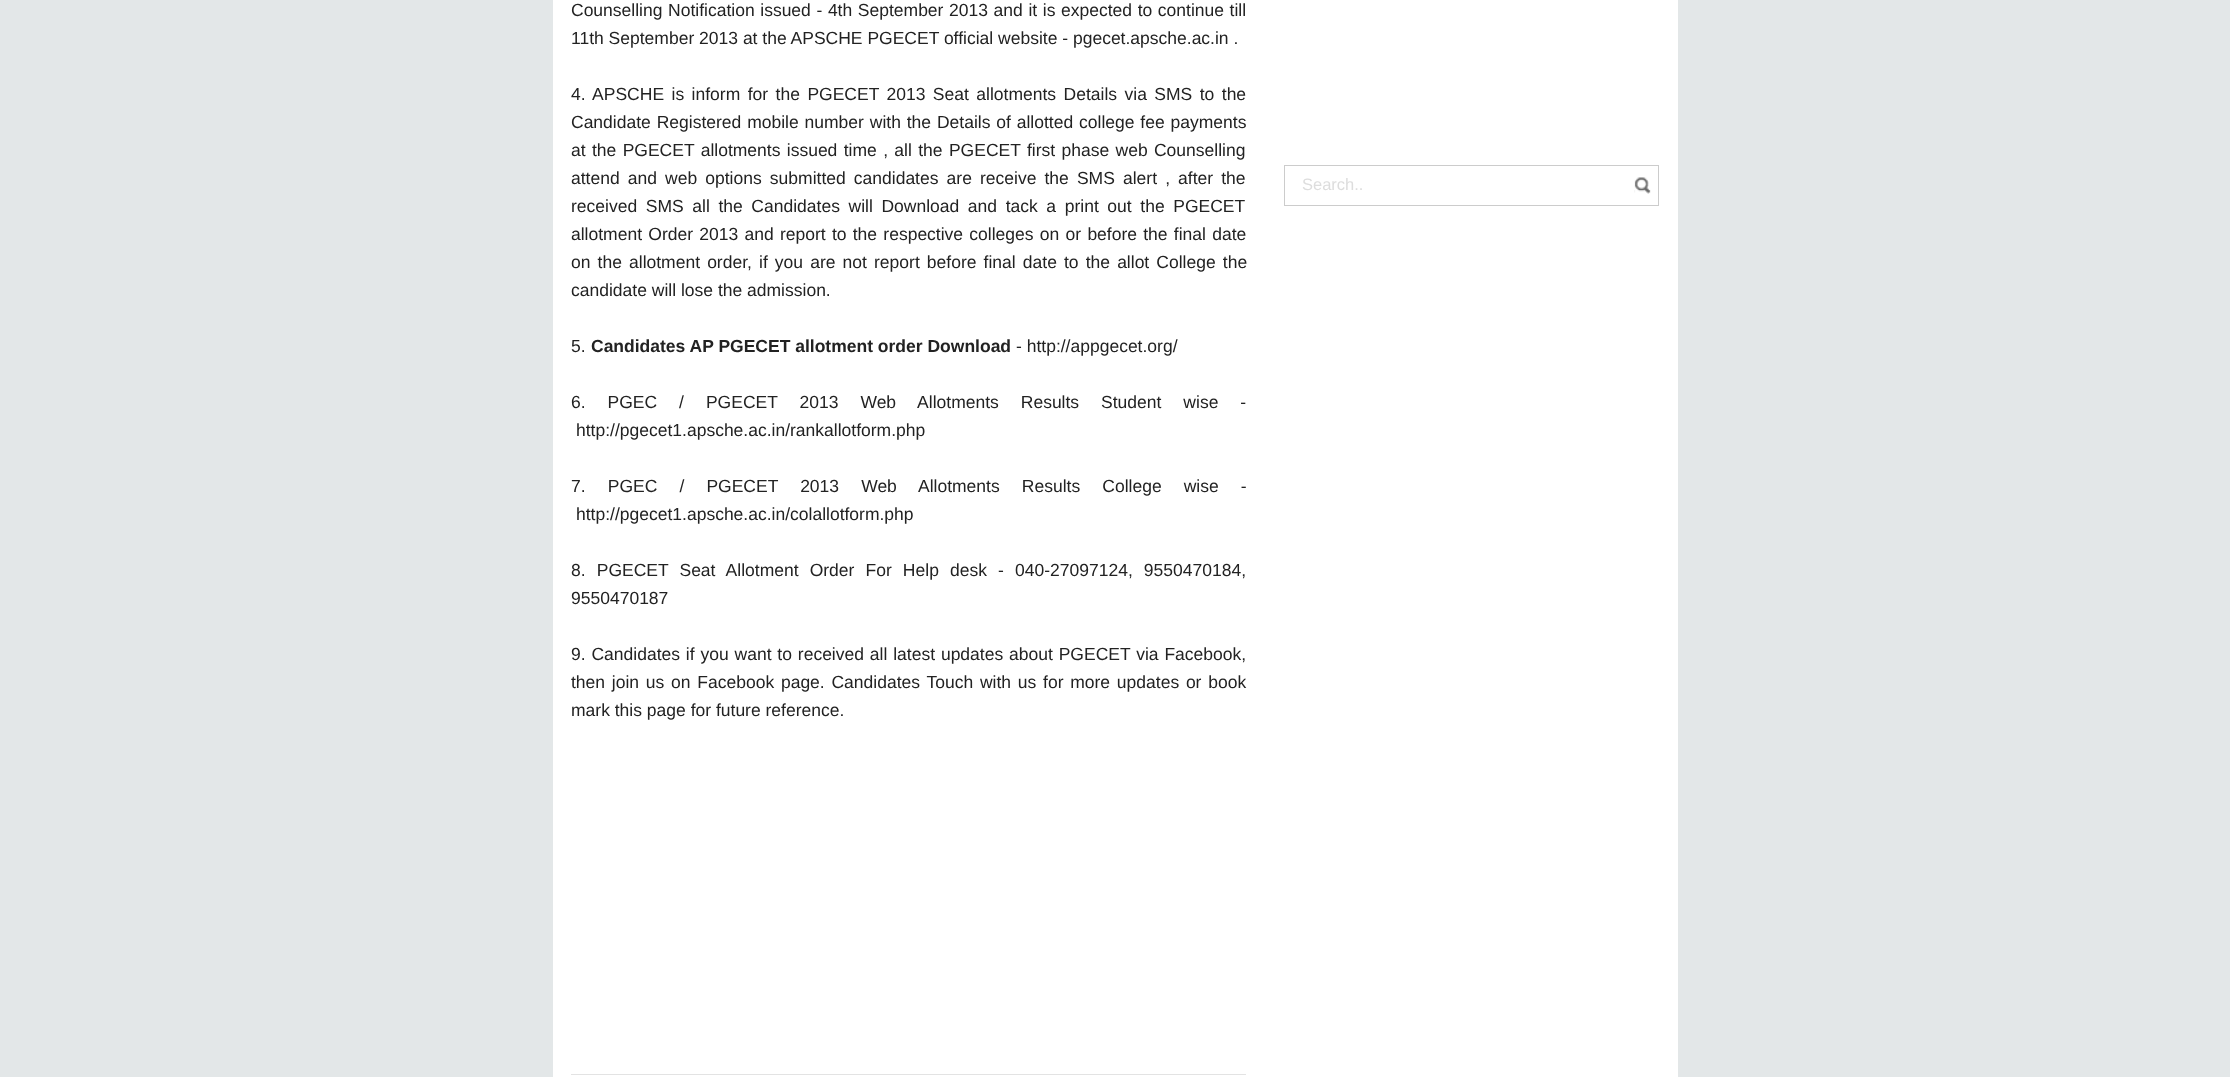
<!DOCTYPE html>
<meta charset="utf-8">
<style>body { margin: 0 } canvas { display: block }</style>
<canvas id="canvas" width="2230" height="1077"></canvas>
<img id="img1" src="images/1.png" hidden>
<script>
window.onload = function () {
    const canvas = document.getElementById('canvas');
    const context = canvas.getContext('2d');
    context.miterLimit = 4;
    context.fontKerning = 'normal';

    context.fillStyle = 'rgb(227, 231, 232)';
    context.fillRect(0, 0, 2230, 1077);
    context.fillStyle = 'rgb(255, 255, 255)';
    context.fillRect(553, 0, 1125, 1077);
    context.fillStyle = 'rgb(227, 227, 227)';
    context.fillRect(571, 1074, 675, 1);
    context.strokeStyle = 'rgb(204, 204, 204)';
    context.strokeRect(1284.5, 165.5, 374, 40);
    context.drawImage(document.getElementById('img1'), 1634, 177, 17, 17);
    context.wordSpacing = '0.75px';
    context.font = '17.5px Liberation Sans';
    context.fillStyle = 'rgb(34, 34, 34)';
    context.fillText('Counselling Notification issued - 4th September 2013 and it is expected to continue till', 571, 16);
    context.wordSpacing = '0px';
    context.fillText('11th September 2013 at the APSCHE PGECET official website - pgecet.apsche.ac.in .', 571, 44);
    context.wordSpacing = '2.6px';
    context.fillText('4. APSCHE is inform for the PGECET 2013 Seat allotments Details via SMS to the', 571, 100);
    context.wordSpacing = '1px';
    context.fillText('Candidate Registered mobile number with the Details of allotted college fee payments', 571, 128);
    context.wordSpacing = '1.5px';
    context.fillText('at the PGECET allotments issued time , all the PGECET first phase web Counselling', 571, 156);
    context.wordSpacing = '3.25px';
    context.fillText('attend and web options submitted candidates are receive the SMS alert , after the', 571, 184);
    context.wordSpacing = '3.75px';
    context.fillText('received SMS all the Candidates will Download and tack a print out the PGECET', 571, 212);
    context.wordSpacing = '1.4px';
    context.fillText('allotment Order 2013 and report to the respective colleges on or before the final date', 571, 240);
    context.wordSpacing = '2.25px';
    context.fillText('on the allotment order, if you are not report before final date to the allot College the', 571, 268);
    context.wordSpacing = '0px';
    context.fillText('candidate will lose the admission.', 571, 296);
    context.fillText('5.', 571, 352);
    context.font = 'bold 17.5px Liberation Sans';
    context.fillText('Candidates AP PGECET allotment order Download', 591, 352);
    context.font = '17.5px Liberation Sans';
    context.fillText('- http://appgecet.org/', 1016, 352);
    context.wordSpacing = '17.1px';
    context.fillText('6. PGEC / PGECET 2013 Web Allotments Results Student wise -', 571, 408);
    context.wordSpacing = '0px';
    context.fillText('http://pgecet1.apsche.ac.in/rankallotform.php', 576, 436);
    context.wordSpacing = '17.25px';
    context.fillText('7. PGEC / PGECET 2013 Web Allotments Results College wise -', 571, 492);
    context.wordSpacing = '0px';
    context.fillText('http://pgecet1.apsche.ac.in/colallotform.php', 576, 520);
    context.wordSpacing = '6.25px';
    context.fillText('8. PGECET Seat Allotment Order For Help desk - 040-27097124, 9550470184,', 571, 576);
    context.wordSpacing = '0px';
    context.fillText('9550470187', 571, 604);
    context.wordSpacing = '1px';
    context.fillText('9. Candidates if you want to received all latest updates about PGECET via Facebook,', 571, 660);
    context.wordSpacing = '1.9px';
    context.fillText('then join us on Facebook page. Candidates Touch with us for more updates or book', 571, 688);
    context.wordSpacing = '0px';
    context.fillText('mark this page for future reference.', 571, 716);
    context.font = '16.5px Liberation Sans';
    context.fillStyle = 'rgb(221, 221, 221)';
    context.fillText('Search..', 1302, 190);
};
</script>
